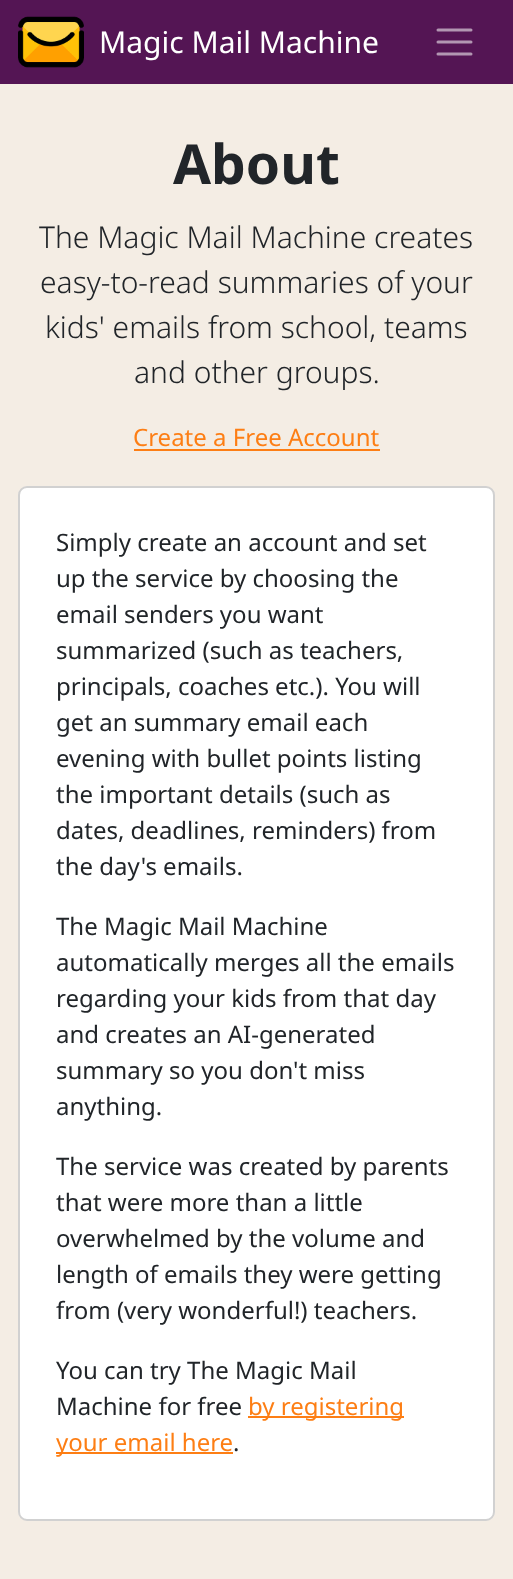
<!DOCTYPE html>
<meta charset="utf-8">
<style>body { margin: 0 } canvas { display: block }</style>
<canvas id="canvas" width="513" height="1579"></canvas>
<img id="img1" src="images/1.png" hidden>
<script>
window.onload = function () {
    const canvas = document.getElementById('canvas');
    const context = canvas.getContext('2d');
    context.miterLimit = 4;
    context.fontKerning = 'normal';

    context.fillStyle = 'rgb(244, 237, 228)';
    context.fillRect(0, 0, 513, 1579);
    context.fillStyle = 'rgb(84, 21, 84)';
    context.fillRect(0, 0, 513, 84);
    context.drawImage(document.getElementById('img1'), 18, 16, 66, 52);
    context.beginPath();
    context.moveTo(438, 30);
    context.lineTo(471, 30);
    context.moveTo(438, 42);
    context.lineTo(471, 42);
    context.moveTo(438, 54);
    context.lineTo(471, 54);
    context.strokeStyle = 'rgb(178, 150, 178)';
    context.lineWidth = 3;
    context.lineCap = 'round';
    context.stroke();
    context.fillStyle = 'rgb(253, 126, 20)';
    context.fillRect(134, 449, 246, 2);
    context.fillStyle = 'rgb(255, 255, 255)';
    context.beginPath();
    context.roundRect(18, 486, 477, 1035, 9);
    context.fill();
    context.beginPath();
    context.roundRect(19, 487, 475, 1033, 8);
    context.strokeStyle = 'rgba(0, 0, 0, 0.18)';
    context.lineWidth = 2;
    context.stroke();
    context.fillStyle = 'rgb(253, 126, 20)';
    context.fillRect(248, 1416, 156, 2);
    context.fillRect(56, 1452, 177, 2);
    context.font = '30px Noto Sans';
    context.fillStyle = 'rgb(255, 255, 255)';
    context.fillText('Magic Mail Machine', 99, 53);
    context.font = 'bold 55px Noto Sans';
    context.fillStyle = 'rgb(33, 37, 41)';
    context.fillText('About', 173, 184);
    context.font = '300 30px Noto Sans';
    context.fillText('The Magic Mail Machine creates', 39, 248);
    context.fillText('easy-to-read summaries of your', 40, 293);
    context.fillText('kids\' emails from school, teams', 45, 338);
    context.fillText('and other groups.', 134, 383);
    context.font = '24px Noto Sans';
    context.fillStyle = 'rgb(253, 126, 20)';
    context.fillText('Create a Free Account', 133, 446);
    context.fillStyle = 'rgb(33, 37, 41)';
    context.fillText('Simply create an account and set', 56, 551);
    context.fillText('up the service by choosing the', 56, 587);
    context.fillText('email senders you want', 56, 623);
    context.fillText('summarized (such as teachers,', 56, 659);
    context.fillText('principals, coaches etc.). You will', 56, 695);
    context.fillText('get an summary email each', 56, 731);
    context.fillText('evening with bullet points listing', 56, 767);
    context.fillText('the important details (such as', 56, 803);
    context.fillText('dates, deadlines, reminders) from', 56, 839);
    context.fillText('the day\'s emails.', 56, 875);
    context.fillText('The Magic Mail Machine', 56, 935);
    context.fillText('automatically merges all the emails', 56, 971);
    context.fillText('regarding your kids from that day', 56, 1007);
    context.fillText('and creates an AI-generated', 56, 1043);
    context.fillText('summary so you don\'t miss', 56, 1079);
    context.fillText('anything.', 56, 1115);
    context.fillText('The service was created by parents', 56, 1175);
    context.fillText('that were more than a little', 56, 1211);
    context.fillText('overwhelmed by the volume and', 56, 1247);
    context.fillText('length of emails they were getting', 56, 1283);
    context.fillText('from (very wonderful!) teachers.', 56, 1319);
    context.fillText('You can try The Magic Mail', 56, 1379);
    context.fillText('Machine for free', 56, 1415);
    context.fillStyle = 'rgb(253, 126, 20)';
    context.fillText('by registering', 248, 1415);
    context.fillText('your email here', 56, 1451);
    context.fillStyle = 'rgb(33, 37, 41)';
    context.fillText('.', 233, 1451);
};
</script>
